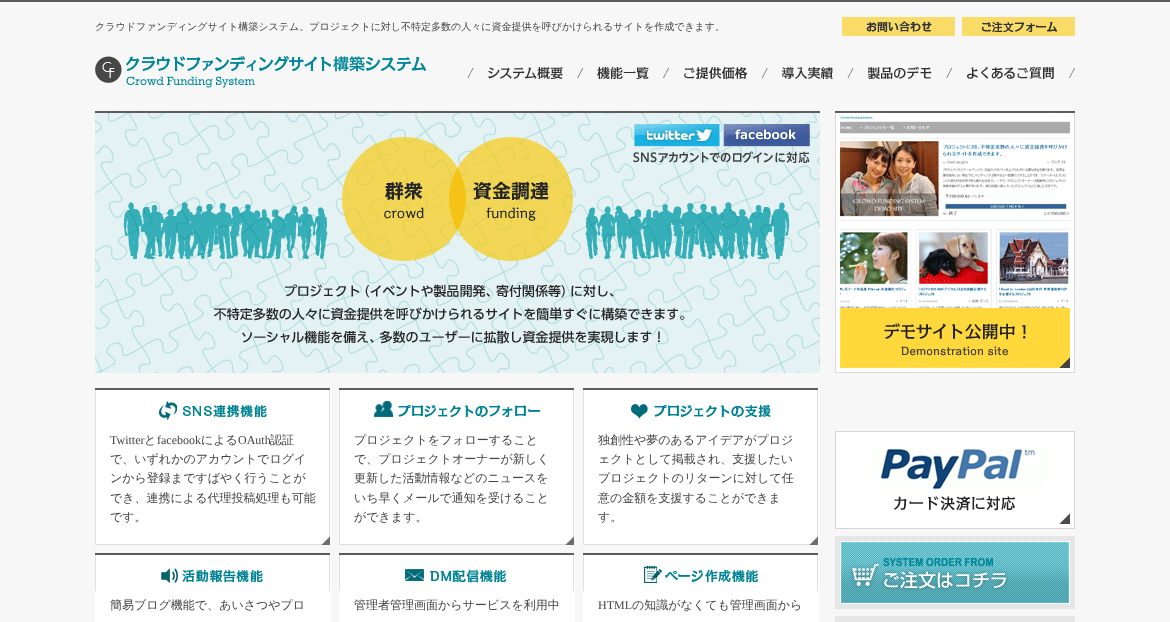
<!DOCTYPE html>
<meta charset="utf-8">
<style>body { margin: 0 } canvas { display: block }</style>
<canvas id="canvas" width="1170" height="622"></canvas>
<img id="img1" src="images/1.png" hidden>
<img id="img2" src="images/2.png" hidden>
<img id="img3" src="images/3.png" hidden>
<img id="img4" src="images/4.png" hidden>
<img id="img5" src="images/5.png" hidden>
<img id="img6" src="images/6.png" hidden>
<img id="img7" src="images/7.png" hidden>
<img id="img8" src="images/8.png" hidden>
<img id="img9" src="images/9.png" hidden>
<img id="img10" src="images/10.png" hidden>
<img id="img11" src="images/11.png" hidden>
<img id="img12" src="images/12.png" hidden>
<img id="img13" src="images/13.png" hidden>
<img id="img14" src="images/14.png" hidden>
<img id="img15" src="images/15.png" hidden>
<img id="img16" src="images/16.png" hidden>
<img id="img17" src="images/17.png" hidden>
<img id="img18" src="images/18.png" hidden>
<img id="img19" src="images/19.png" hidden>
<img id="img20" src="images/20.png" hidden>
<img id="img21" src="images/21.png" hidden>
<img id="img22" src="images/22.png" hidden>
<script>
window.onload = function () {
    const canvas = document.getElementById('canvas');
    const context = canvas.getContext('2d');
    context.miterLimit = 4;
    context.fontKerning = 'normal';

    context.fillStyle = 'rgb(247, 247, 247)';
    context.fillRect(0, 0, 1170, 622);
    context.fillStyle = 'rgb(93, 93, 93)';
    context.fillRect(0, 0, 1170, 2);
    context.drawImage(document.getElementById('img1'), 842, 17, 113, 19);
    context.drawImage(document.getElementById('img2'), 962, 17, 113, 19);
    context.drawImage(document.getElementById('img3'), 95, 56, 331, 32);
    context.drawImage(document.getElementById('img4'), 467, 67, 116, 12);
    context.drawImage(document.getElementById('img5'), 583, 67, 86, 12);
    context.drawImage(document.getElementById('img6'), 684, 67, 84, 12);
    context.drawImage(document.getElementById('img7'), 782, 67, 72, 12);
    context.drawImage(document.getElementById('img8'), 867, 66, 85, 13);
    context.drawImage(document.getElementById('img9'), 952, 67, 123, 12);
    context.drawImage(document.getElementById('img10'), 95, 111, 725, 262);
    context.fillStyle = 'rgb(255, 255, 255)';
    context.fillRect(330, 388, 1, 157);
    context.drawImage(document.getElementById('img11'), 95, 420, 235, 125);
    context.drawImage(document.getElementById('img12'), 95, 388, 235, 32);
    context.fillRect(574, 388, 1, 157);
    context.drawImage(document.getElementById('img13'), 339, 417, 235, 128);
    context.drawImage(document.getElementById('img14'), 339, 388, 235, 29);
    context.fillRect(818, 388, 1, 157);
    context.drawImage(document.getElementById('img15'), 583, 419, 235, 126);
    context.drawImage(document.getElementById('img16'), 583, 388, 235, 31);
    context.fillRect(95, 553, 236, 69);
    context.drawImage(document.getElementById('img17'), 95, 553, 235, 38);
    context.fillRect(339, 553, 236, 69);
    context.drawImage(document.getElementById('img18'), 339, 553, 235, 38);
    context.fillRect(583, 553, 236, 69);
    context.drawImage(document.getElementById('img19'), 583, 553, 235, 38);
    context.drawImage(document.getElementById('img20'), 835, 111, 240, 262);
    context.drawImage(document.getElementById('img21'), 835, 431, 240, 98);
    context.drawImage(document.getElementById('img22'), 835, 536, 240, 73);
    context.fillStyle = 'rgb(230, 230, 230)';
    context.fillRect(835, 616, 240, 6);
    context.font = '500 10px WenQuanYi Zen Hei';
    context.fillStyle = 'rgb(68, 68, 68)';
    context.fillText('クラウドファンディングサイト構築システム。プロジェクトに対し不特定多数の人々に資金提供を呼びかけられるサイトを作成できます。', 95, 30);
    context.font = '12px Liberation Serif';
    context.fillText('Twitter', 110, 444);
    context.font = '500 12px WenQuanYi Zen Hei';
    context.fillText('と', 144, 444);
    context.font = '12px Liberation Serif';
    context.fillText('facebook', 157, 444);
    context.font = '500 12px WenQuanYi Zen Hei';
    context.fillText('による', 201, 444);
    context.font = '12px Liberation Serif';
    context.fillText('OAuth', 238, 444);
    context.font = '500 12px WenQuanYi Zen Hei';
    context.fillText('認証', 270, 444);
    context.fillText('で、いずれかのアカウントでログイ', 110, 463);
    context.fillText('ンから登録まですばやく行うことが', 110, 482);
    context.fillText('でき、連携による代理投稿処理も可能', 110, 502);
    context.fillText('です。', 110, 521);
    context.fillText('プロジェクトをフォローすること', 354, 444);
    context.fillText('で、プロジェクトオーナーが新しく', 354, 463);
    context.fillText('更新した活動情報などのニュースを', 354, 482);
    context.fillText('いち早くメールで通知を受けること', 354, 502);
    context.fillText('ができます。', 354, 521);
    context.fillText('独創性や夢のあるアイデアがプロジ', 598, 444);
    context.fillText('ェクトとして掲載され、支援したい', 598, 463);
    context.fillText('プロジェクトのリターンに対して任', 598, 482);
    context.fillText('意の金額を支援することができま', 598, 502);
    context.fillText('す。', 598, 521);
    context.fillText('簡易ブログ機能で、あいさつやプロ', 110, 609);
    context.fillText('管理者管理画面からサービスを利用中', 354, 609);
    context.font = '12px Liberation Serif';
    context.fillText('HTML', 598, 609);
    context.font = '500 12px WenQuanYi Zen Hei';
    context.fillText('の知識がなくても管理画面から', 632, 609);
};
</script>
